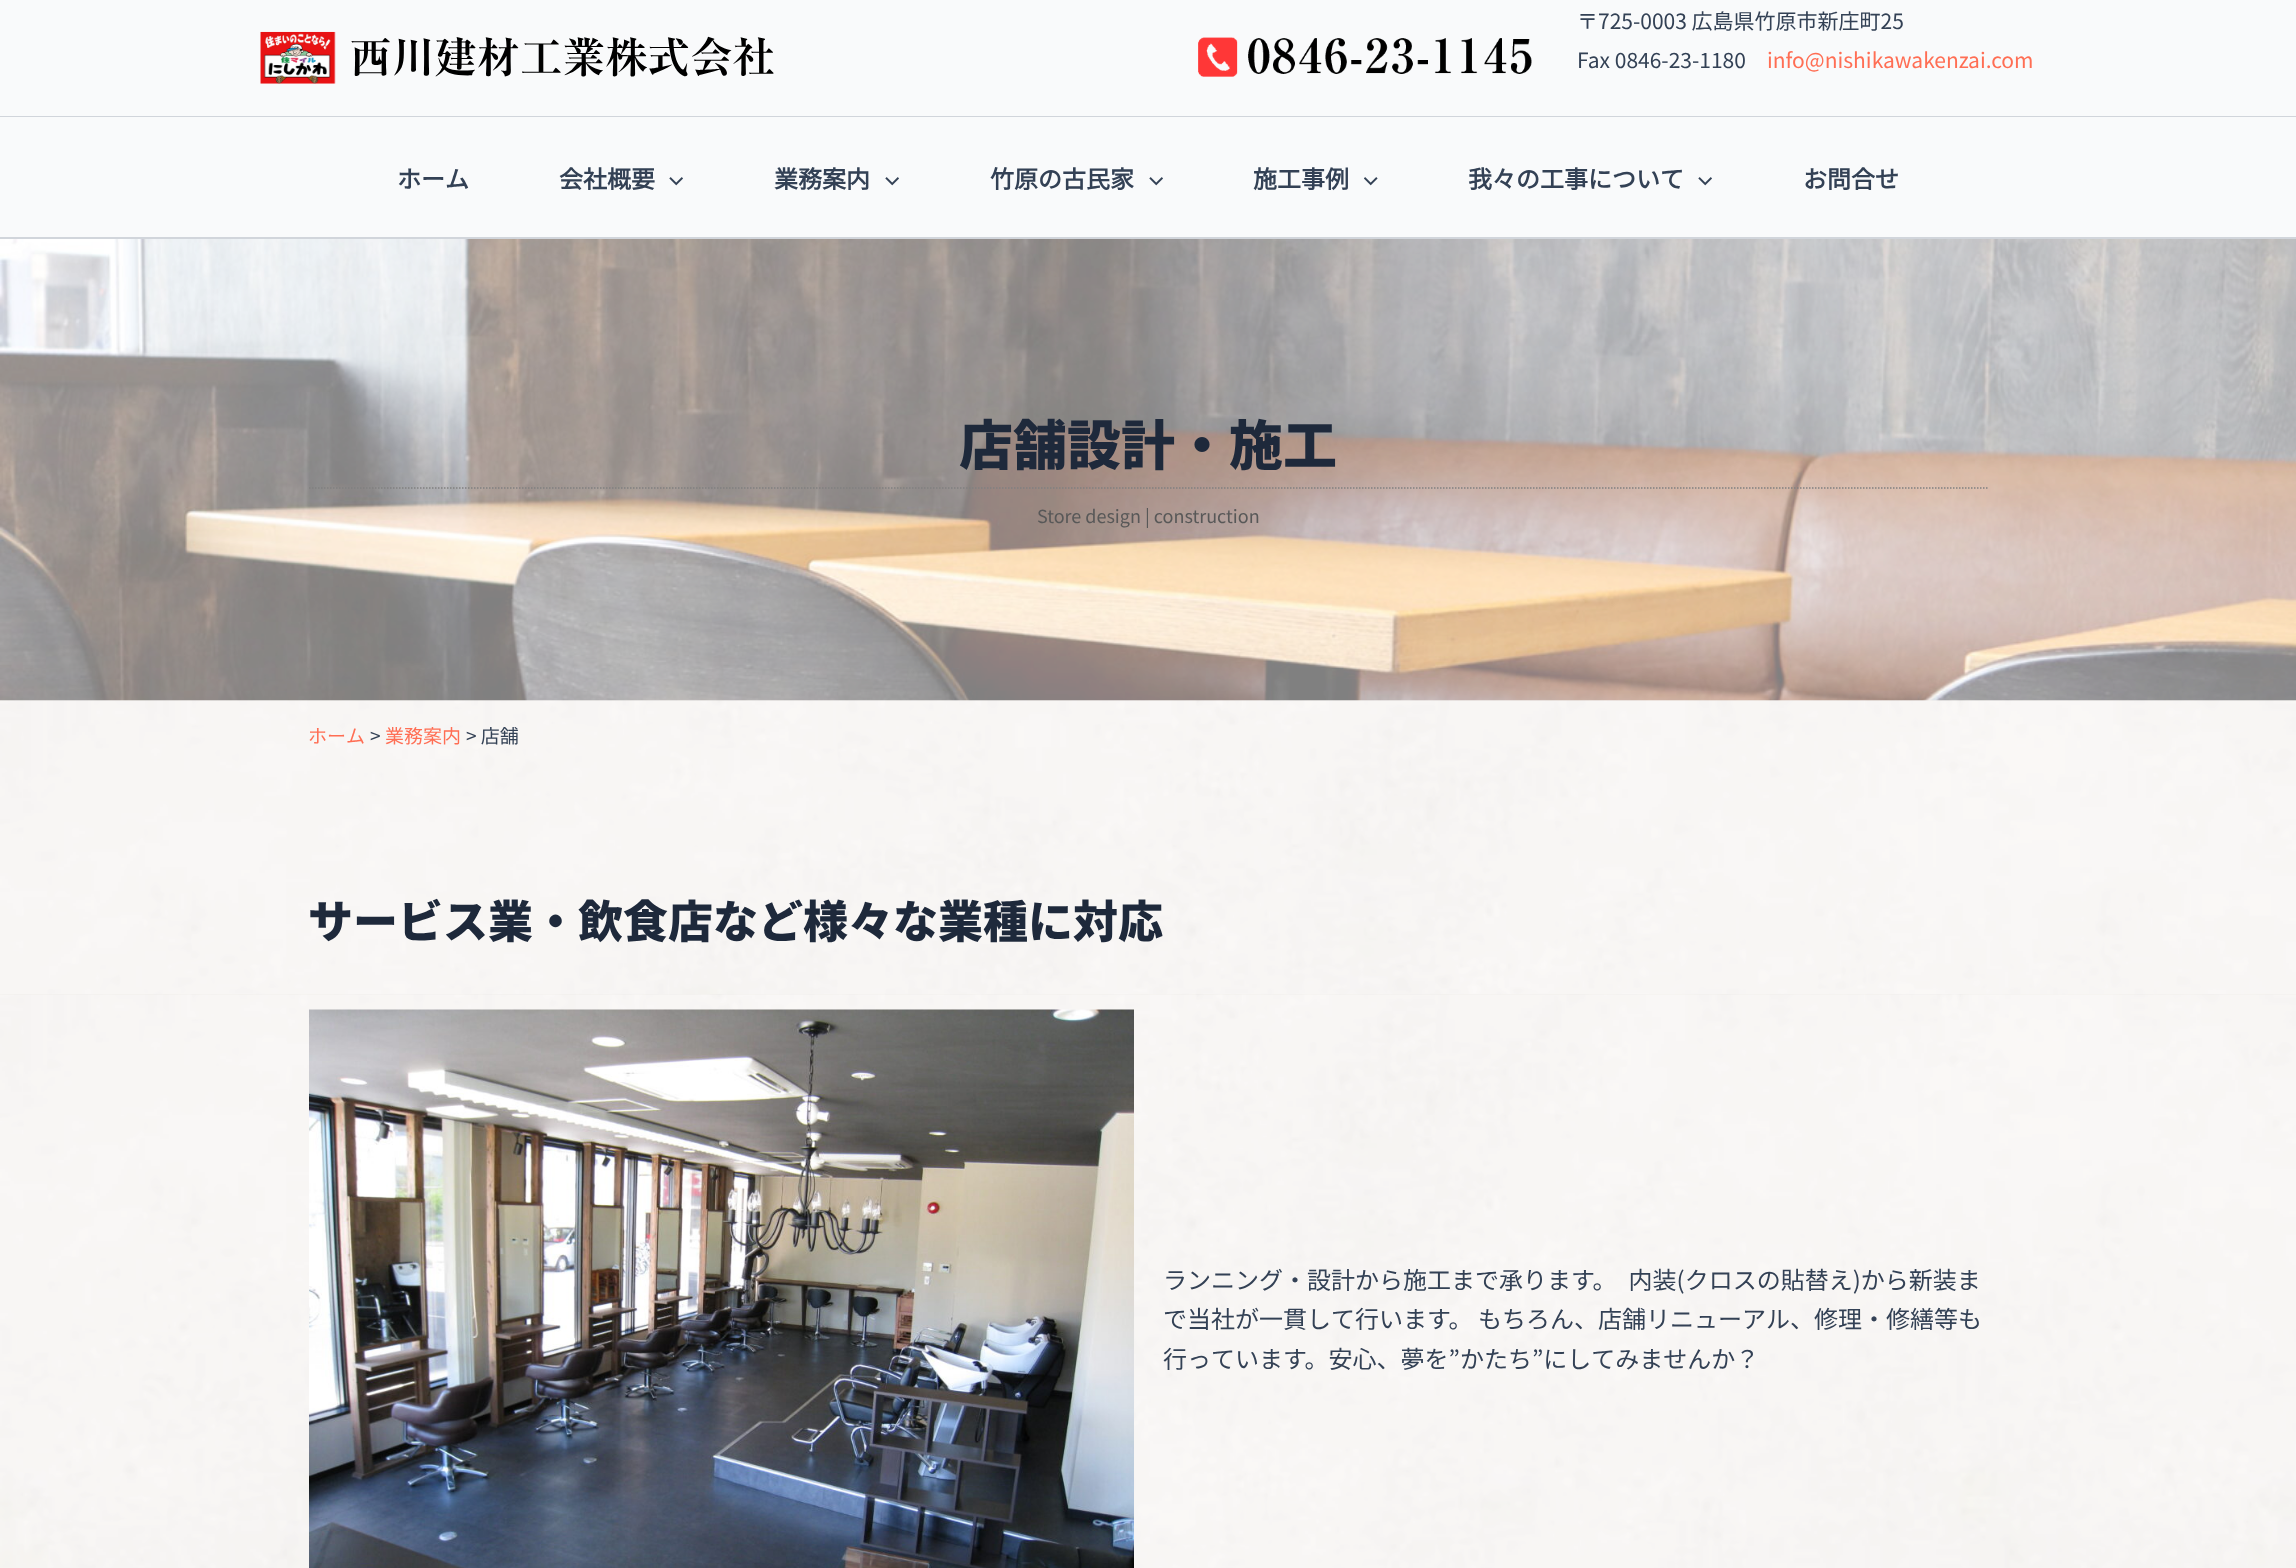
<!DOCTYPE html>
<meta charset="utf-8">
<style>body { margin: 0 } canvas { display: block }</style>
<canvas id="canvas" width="2296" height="1568"></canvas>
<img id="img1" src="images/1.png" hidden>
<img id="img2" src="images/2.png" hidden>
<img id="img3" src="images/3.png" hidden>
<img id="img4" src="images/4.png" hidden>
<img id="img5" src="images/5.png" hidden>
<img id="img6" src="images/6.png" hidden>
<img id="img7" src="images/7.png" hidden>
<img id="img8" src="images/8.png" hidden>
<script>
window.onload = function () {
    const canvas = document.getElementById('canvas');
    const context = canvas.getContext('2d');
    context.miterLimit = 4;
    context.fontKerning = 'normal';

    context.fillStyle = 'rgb(249, 250, 251)';
    context.fillRect(0, 0, 2296, 1568);
    context.fillStyle = 'rgb(209, 213, 219)';
    context.fillRect(0, 116, 2296, 1);
    context.drawImage(document.getElementById('img1'), 260, 31, 514, 53);
    context.drawImage(document.getElementById('img2'), 1198, 37, 334, 40);
    context.fillRect(0, 237, 2296, 2);
    context.drawImage(document.getElementById('img3'), 669, 177, 14, 9);
    context.drawImage(document.getElementById('img3'), 885, 177, 14, 9);
    context.drawImage(document.getElementById('img3'), 1149, 177, 14, 9);
    context.drawImage(document.getElementById('img4'), 1364, 177, 14, 9);
    context.drawImage(document.getElementById('img3'), 1698, 177, 14, 9);
    context.drawImage(document.getElementById('img5'), 0, 239, 2296, 462);
    context.beginPath();
    context.moveTo(309, 488);
    context.lineTo(1989, 488);
    context.strokeStyle = 'rgb(128, 128, 128)';
    context.lineWidth = 1.5;
    context.setLineDash([1.5, 1.5]);
    context.stroke();
    context.drawImage(document.getElementById('img6'), 0, 700, 2296, 295);
    context.drawImage(document.getElementById('img7'), 0, 994, 2296, 574);
    context.drawImage(document.getElementById('img8'), 309, 1009, 825, 559);
    context.font = '21px Noto Sans JP';
    context.fillStyle = 'rgb(51, 65, 85)';
    context.fillText('〒725-0003 広島県竹原市新庄町25', 1577, 29);
    context.fillText('Fax 0846-23-1180', 1577, 68);
    context.fillStyle = 'rgb(255, 110, 84)';
    context.fillText('info@nishikawakenzai.com', 1767, 68);
    context.font = 'bold 24px Noto Sans JP';
    context.fillStyle = 'rgb(51, 65, 85)';
    context.fillText('ホーム', 397, 188);
    context.fillText('会社概要', 559, 188);
    context.fillText('業務案内', 774, 188);
    context.fillText('竹原の古民家', 990, 188);
    context.fillText('施工事例', 1253, 188);
    context.fillText('我々の工事について', 1468, 188);
    context.fillText('お問合せ', 1803, 188);
    context.font = '900 54px Noto Sans JP';
    context.fillStyle = 'rgb(30, 41, 59)';
    context.fillText('店舗設計・施工', 959, 465);
    context.font = '18px Noto Sans JP';
    context.fillStyle = 'rgb(88, 88, 88)';
    context.fillText('Store design | construction', 1037, 523);
    context.font = '19px Noto Sans JP';
    context.fillStyle = 'rgb(255, 110, 84)';
    context.fillText('ホーム', 308, 743);
    context.fillStyle = 'rgb(51, 65, 85)';
    context.fillText('>', 370, 743);
    context.fillStyle = 'rgb(255, 110, 84)';
    context.fillText('業務案内', 385, 743);
    context.fillStyle = 'rgb(51, 65, 85)';
    context.fillText('> 店舗', 466, 743);
    context.font = '900 45px Noto Sans JP';
    context.fillStyle = 'rgb(30, 41, 59)';
    context.fillText('サービス業・飲食店など様々な業種に対応', 308, 938);
    context.font = '24px Noto Sans JP';
    context.fillStyle = 'rgb(51, 65, 85)';
    context.fillText('ランニング・設計から施工まで承ります。　内装(クロスの貼替え)から新装ま', 1163, 1289);
    context.fillText('で当社が一貫して行います。 もちろん、店舗リニューアル、修理・修繕等も', 1163, 1328);
    context.fillText('行っています。安心、夢を”かたち”にしてみませんか？', 1163, 1368);
};
</script>
